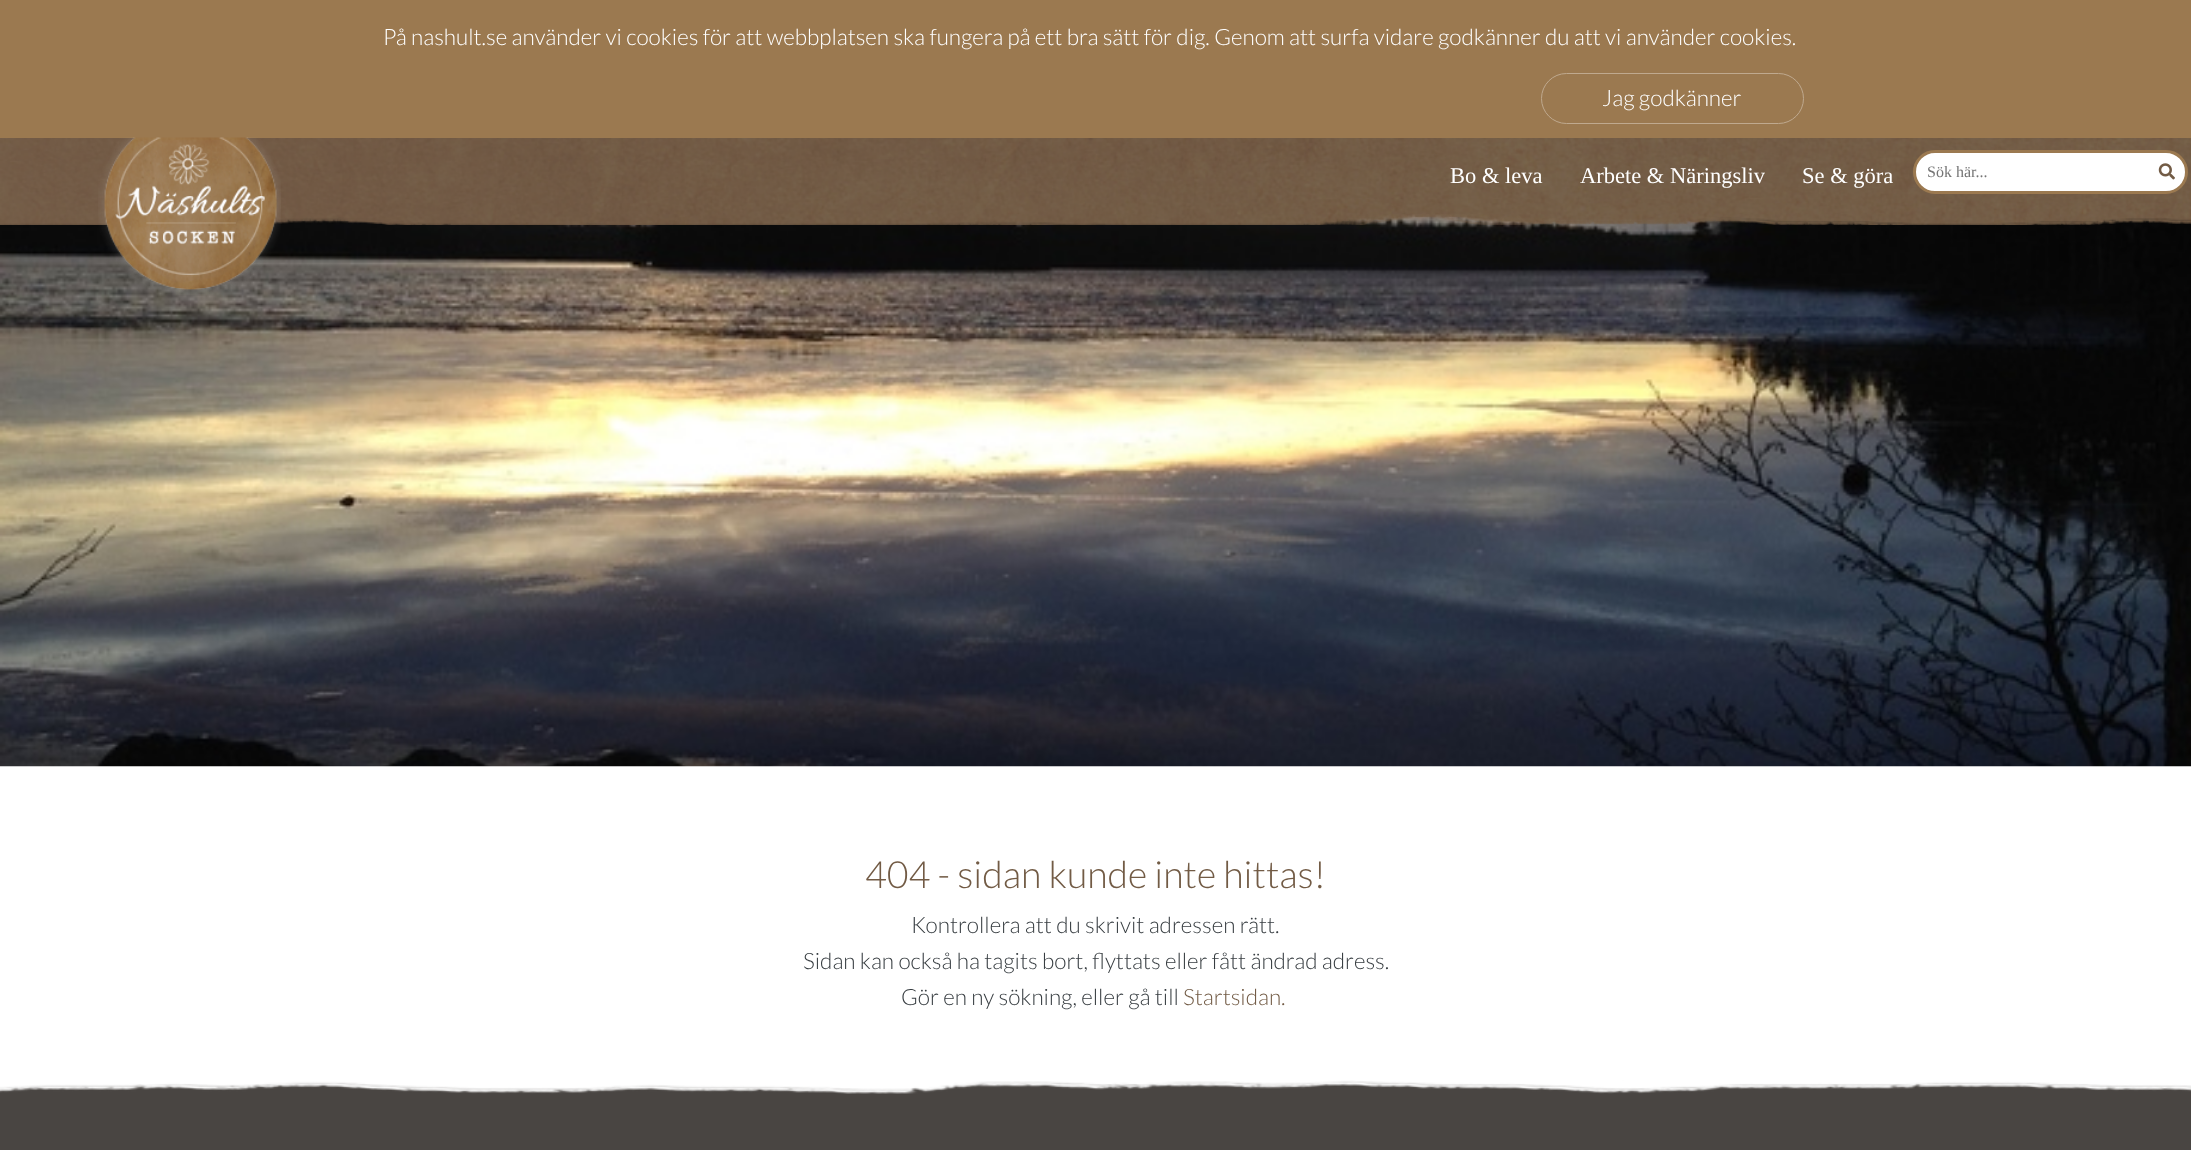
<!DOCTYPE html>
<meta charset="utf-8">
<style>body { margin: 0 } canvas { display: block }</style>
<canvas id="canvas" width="2191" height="1150"></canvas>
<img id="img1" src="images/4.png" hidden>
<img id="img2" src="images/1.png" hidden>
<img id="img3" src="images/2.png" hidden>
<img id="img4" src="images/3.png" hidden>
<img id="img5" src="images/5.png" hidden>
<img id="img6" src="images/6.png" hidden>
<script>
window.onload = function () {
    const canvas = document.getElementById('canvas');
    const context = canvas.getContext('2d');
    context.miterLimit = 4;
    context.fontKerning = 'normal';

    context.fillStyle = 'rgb(255, 255, 255)';
    context.fillRect(0, 0, 2191, 1150);
    context.fillStyle = 'rgb(155, 121, 80)';
    context.fillRect(0, 0, 2191, 138);
    context.beginPath();
    context.roundRect(1541.5, 73.5, 262, 50, 25);
    context.strokeStyle = 'rgb(191, 169, 143)';
    context.stroke();
    context.drawImage(document.getElementById('img1'), 0, 214, 2191, 553);
    context.drawImage(document.getElementById('img2'), 0, 138, 2191, 87);
    context.drawImage(document.getElementById('img3'), 98, 137, 183, 158);
    context.fillStyle = 'rgb(255, 255, 255)';
    context.beginPath();
    context.roundRect(1914.5, 151.5, 272, 41, 20.5);
    context.fill();
    context.strokeStyle = 'rgb(155, 121, 80)';
    context.lineWidth = 3;
    context.stroke();
    context.drawImage(document.getElementById('img4'), 2158, 163, 17, 17);
    context.drawImage(document.getElementById('img5'), 0, 1104, 2191, 46);
    context.drawImage(document.getElementById('img6'), 0, 1080, 2191, 24);
    context.font = '300 22.5px Lato';
    context.fillText('På nashult.se använder vi cookies för att webbplatsen ska fungera på ett bra sätt för dig. Genom att surfa vidare godkänner du att vi använder cookies.', 383, 45);
    context.fillText('Jag godkänner', 1602, 106);
    context.font = '22.5px Liberation Serif';
    context.fillText('Bo & leva', 1450, 183);
    context.fillText('Arbete & Näringsliv', 1580, 183);
    context.fillText('Se & göra', 1802, 183);
    context.font = '16px Liberation Serif';
    context.fillStyle = 'rgb(117, 117, 117)';
    context.fillText('Sök här...', 1927, 177);
    context.font = '300 37.5px Lato';
    context.fillStyle = 'rgb(114, 91, 69)';
    context.fillText('404 - sidan kunde inte hittas!', 865, 888);
    context.font = '300 22.5px Lato';
    context.fillStyle = 'rgb(55, 61, 65)';
    context.fillText('Kontrollera att du skrivit adressen rätt.', 911, 933);
    context.fillText('Sidan kan också ha tagits bort, flyttats eller fått ändrad adress.', 803, 969);
    context.fillText('Gör en ny sökning, eller gå till', 901, 1005);
    context.fillStyle = 'rgb(114, 91, 69)';
    context.fillText('Startsidan.', 1183, 1005);
};
</script>
